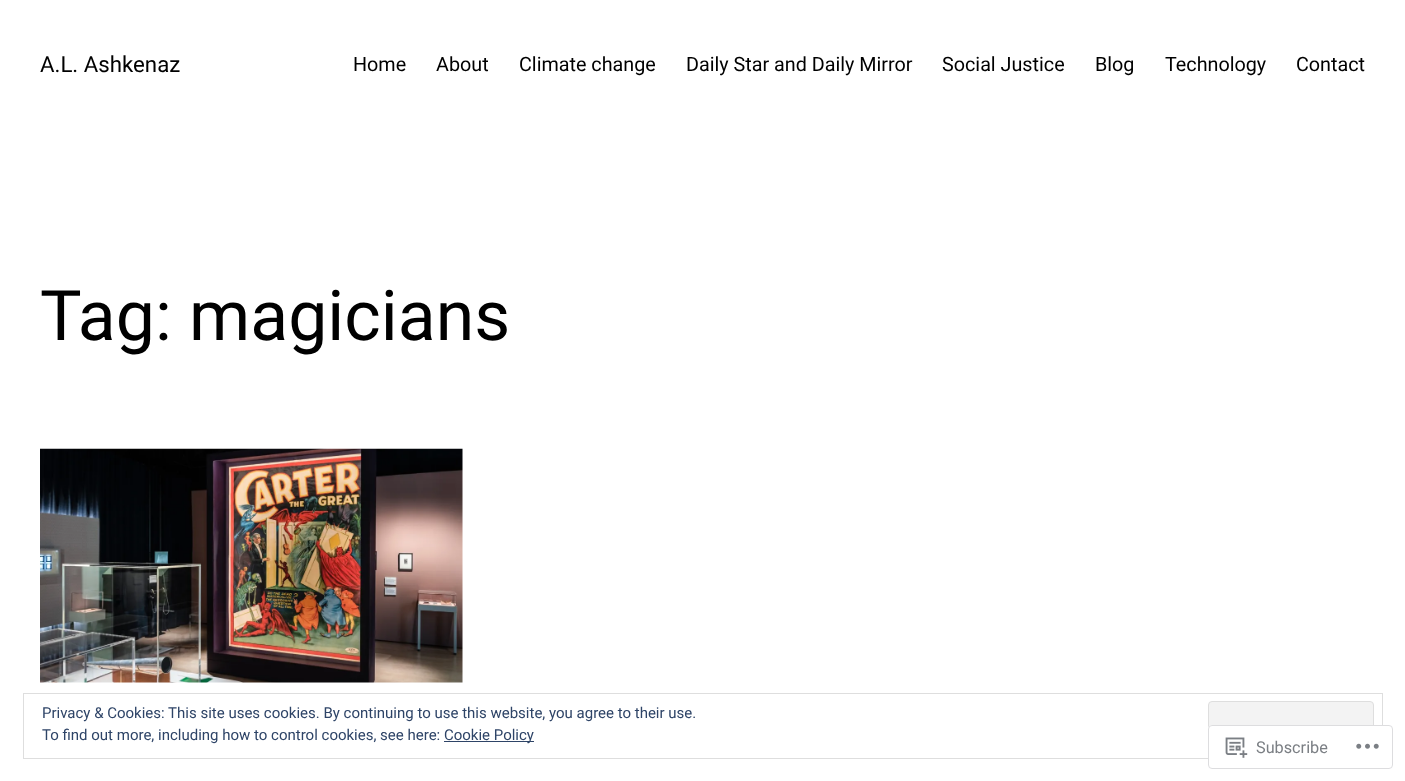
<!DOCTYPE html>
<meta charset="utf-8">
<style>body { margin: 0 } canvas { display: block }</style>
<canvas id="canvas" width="1405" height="781"></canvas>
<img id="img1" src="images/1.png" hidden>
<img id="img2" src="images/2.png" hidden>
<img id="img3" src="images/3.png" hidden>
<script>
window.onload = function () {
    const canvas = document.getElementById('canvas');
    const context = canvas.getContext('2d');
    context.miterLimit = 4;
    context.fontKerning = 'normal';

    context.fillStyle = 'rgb(255, 255, 255)';
    context.fillRect(0, 0, 1405, 781);
    context.drawImage(document.getElementById('img1'), 40, 448, 423, 235);
    context.strokeStyle = 'rgb(222, 222, 222)';
    context.strokeRect(23.5, 693.5, 1359, 65);
    context.fillStyle = 'rgb(243, 243, 243)';
    context.beginPath();
    context.roundRect(1208.5, 701.5, 165, 48, 3.5);
    context.fill();
    context.stroke();
    context.fillStyle = 'rgb(46, 68, 103)';
    context.fillRect(444, 741, 90, 1);
    context.fillStyle = 'rgba(255, 255, 255, 0.98)';
    context.beginPath();
    context.roundRect(1208, 725, 185, 44, 4);
    context.fill();
    context.beginPath();
    context.roundRect(1208.5, 725.5, 184, 43, 3.5);
    context.strokeStyle = 'rgba(220, 220, 222, 0.98)';
    context.stroke();
    context.drawImage(document.getElementById('img2'), 1225, 737, 23, 21);
    context.drawImage(document.getElementById('img3'), 1356, 743, 23, 6);
    context.font = '22.25px Roboto';
    context.fillStyle = 'rgb(0, 0, 0)';
    context.fillText('A.L. Ashkenaz', 40, 72);
    context.font = '19.75px Roboto';
    context.fillText('Home', 353, 71);
    context.fillText('About', 436, 71);
    context.fillText('Climate change', 519, 71);
    context.fillText('Daily Star and Daily Mirror', 686, 71);
    context.fillText('Social Justice', 942, 71);
    context.fillText('Blog', 1095, 71);
    context.fillText('Technology', 1165, 71);
    context.fillText('Contact', 1296, 71);
    context.font = '69.75px Roboto';
    context.fillText('Tag: magicians', 40, 340);
    context.font = '15px Roboto';
    context.fillStyle = 'rgb(46, 68, 103)';
    context.fillText('Privacy & Cookies: This site uses cookies. By continuing to use this website, you agree to their use.', 42, 718);
    context.fillText('To find out more, including how to control cookies, see here:', 42, 740);
    context.fillText('Cookie Policy', 444, 740);
    context.font = '16.25px Roboto';
    context.fillStyle = 'rgb(123, 127, 132)';
    context.fillText('Subscribe', 1256, 753);
};
</script>
